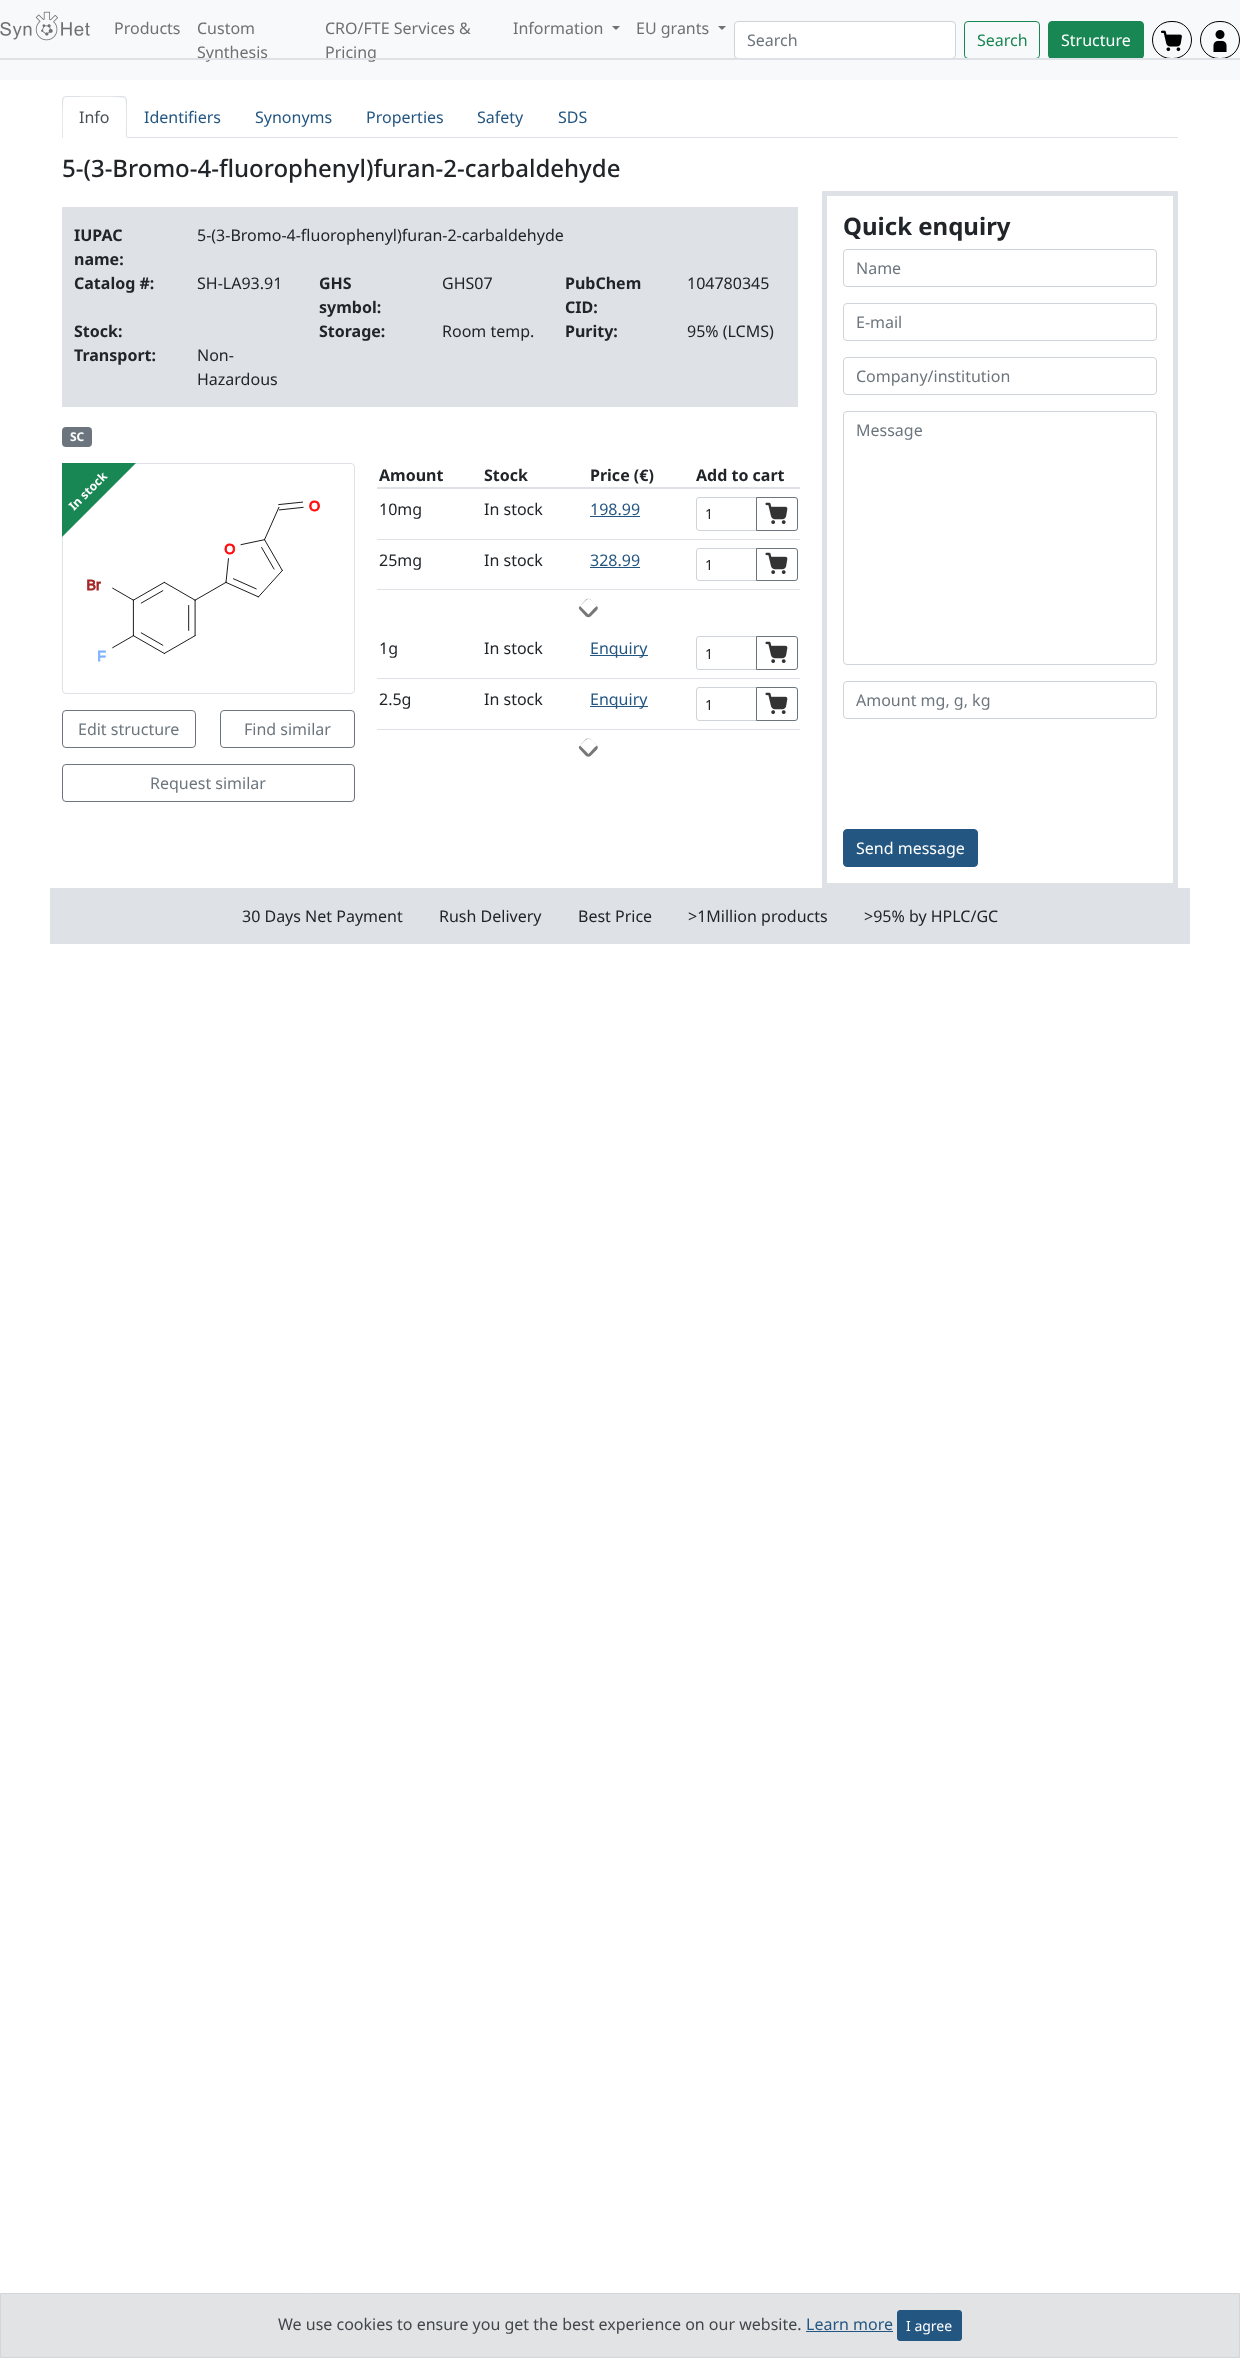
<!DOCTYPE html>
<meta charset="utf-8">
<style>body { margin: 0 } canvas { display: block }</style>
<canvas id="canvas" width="1240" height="2358"></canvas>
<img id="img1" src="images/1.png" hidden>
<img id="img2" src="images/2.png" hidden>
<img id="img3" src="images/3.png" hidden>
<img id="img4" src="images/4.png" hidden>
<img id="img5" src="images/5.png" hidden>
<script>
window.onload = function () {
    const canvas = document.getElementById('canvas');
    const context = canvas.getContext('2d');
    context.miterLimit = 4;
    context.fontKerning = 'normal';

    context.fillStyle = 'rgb(255, 255, 255)';
    context.fillRect(0, 0, 1240, 2358);
    context.fillStyle = 'rgb(248, 249, 250)';
    context.fillRect(0, 0, 1240, 80);
    context.drawImage(document.getElementById('img1'), 0, 11, 90, 30);
    context.fillStyle = 'rgb(112, 112, 113)';
    context.beginPath();
    context.moveTo(612, 26);
    context.lineTo(620, 26);
    context.lineTo(616, 30);
    context.closePath();
    context.fill();
    context.beginPath();
    context.moveTo(718, 26);
    context.lineTo(726, 26);
    context.lineTo(722, 30);
    context.closePath();
    context.fill();
    context.fillStyle = 'rgb(255, 255, 255)';
    context.beginPath();
    context.roundRect(734.5, 21.5, 221, 37, 3.5);
    context.fill();
    context.strokeStyle = 'rgb(206, 212, 218)';
    context.stroke();
    context.beginPath();
    context.roundRect(964.5, 21.5, 75, 37, 3.5);
    context.strokeStyle = 'rgb(25, 135, 84)';
    context.stroke();
    context.fillStyle = 'rgb(25, 135, 84)';
    context.beginPath();
    context.roundRect(1048.5, 21.5, 95, 37, 3.5);
    context.fill();
    context.stroke();
    context.beginPath();
    context.roundRect(1152.5, 21.5, 39, 37, 18.5);
    context.strokeStyle = 'rgb(0, 0, 0)';
    context.stroke();
    context.drawImage(document.getElementById('img2'), 1161, 30, 21, 22);
    context.beginPath();
    context.roundRect(1200.5, 21.5, 39, 37, 18.5);
    context.stroke();
    context.drawImage(document.getElementById('img3'), 1213, 30, 14, 22);
    context.fillStyle = 'rgb(222, 226, 230)';
    context.fillRect(127, 137, 1051, 1);
    context.beginPath();
    context.moveTo(66, 96);
    context.lineTo(63, 97);
    context.lineTo(64, 98);
    context.lineTo(66, 97);
    context.bezierCurveTo(71, 97, 123, 96, 125, 98);
    context.lineTo(126, 97);
    context.lineTo(123, 96);
    context.closePath();
    context.fill();
    context.beginPath();
    context.moveTo(127, 138);
    context.lineTo(127, 100);
    context.bezierCurveTo(127, 99, 126, 98, 126, 97);
    context.lineTo(125, 98);
    context.bezierCurveTo(127, 100, 126, 132, 126, 137);
    context.closePath();
    context.fill();
    context.fillStyle = 'rgb(255, 255, 255)';
    context.beginPath();
    context.moveTo(127, 138);
    context.lineTo(126, 137);
    context.lineTo(63, 137);
    context.lineTo(62, 138);
    context.closePath();
    context.fill();
    context.fillStyle = 'rgb(222, 226, 230)';
    context.beginPath();
    context.moveTo(62, 138);
    context.lineTo(63, 137);
    context.bezierCurveTo(63, 132, 62, 100, 64, 98);
    context.lineTo(63, 97);
    context.lineTo(62, 100);
    context.closePath();
    context.fill();
    context.fillRect(62, 207, 736, 200);
    context.fillStyle = 'rgb(108, 117, 125)';
    context.beginPath();
    context.roundRect(62, 427, 30, 20, 4);
    context.fill();
    context.beginPath();
    context.roundRect(62.5, 463.5, 292, 230, 3.5);
    context.strokeStyle = 'rgb(222, 226, 230)';
    context.stroke();
    context.drawImage(document.getElementById('img4'), 87, 500, 233, 162);
    context.save();
    context.beginPath();
    context.rect(62, 463, 293, 231);
    context.clip();
    context.fillStyle = 'rgb(25, 135, 84)';
    context.beginPath();
    context.moveTo(16, 495);
    context.lineTo(92, 419);
    context.lineTo(136, 463);
    context.lineTo(60, 539);
    context.closePath();
    context.fill();
    context.restore();
    context.beginPath();
    context.roundRect(62.5, 710.5, 133, 37, 3.5);
    context.strokeStyle = 'rgb(108, 117, 125)';
    context.stroke();
    context.beginPath();
    context.roundRect(220.5, 710.5, 134, 37, 3.5);
    context.stroke();
    context.beginPath();
    context.roundRect(62.5, 764.5, 292, 37, 3.5);
    context.stroke();
    context.fillStyle = 'rgb(222, 226, 230)';
    context.fillRect(377, 487, 423, 2);
    context.fillRect(377, 539, 423, 1);
    context.fillStyle = 'rgb(36, 86, 130)';
    context.fillRect(590, 516, 50, 1);
    context.beginPath();
    context.roundRect(696.5, 497.5, 60, 33, [2.5, 0, 0, 2.5]);
    context.strokeStyle = 'rgb(206, 212, 218)';
    context.stroke();
    context.beginPath();
    context.roundRect(756.5, 497.5, 41, 33, [0, 2.5, 2.5, 0]);
    context.strokeStyle = 'rgb(108, 117, 125)';
    context.stroke();
    context.drawImage(document.getElementById('img5'), 765, 502, 23, 22);
    context.fillStyle = 'rgb(222, 226, 230)';
    context.fillRect(377, 589, 423, 1);
    context.fillStyle = 'rgb(36, 86, 130)';
    context.fillRect(590, 567, 50, 1);
    context.beginPath();
    context.roundRect(696.5, 548.5, 60, 32, [2.5, 0, 0, 2.5]);
    context.strokeStyle = 'rgb(206, 212, 218)';
    context.stroke();
    context.beginPath();
    context.roundRect(756.5, 548.5, 41, 32, [0, 2.5, 2.5, 0]);
    context.strokeStyle = 'rgb(108, 117, 125)';
    context.stroke();
    context.drawImage(document.getElementById('img5'), 765, 552, 23, 22);
    context.fillStyle = 'rgb(119, 119, 119)';
    context.beginPath();
    context.moveTo(586, 616.5);
    context.lineTo(580, 610);
    context.bezierCurveTo(578.5, 609, 578.5, 607, 580, 606);
    context.lineTo(586, 599.5);
    context.bezierCurveTo(587.5, 598.5, 589.5, 598.5, 590.5, 599.5);
    context.lineTo(597, 606);
    context.bezierCurveTo(598, 607, 598, 609, 597, 610);
    context.lineTo(590.5, 616.5);
    context.bezierCurveTo(589.5, 617.5, 587.5, 617.5, 586, 616.5);
    context.closePath();
    context.moveTo(588.5, 614.5);
    context.lineTo(580, 606);
    context.bezierCurveTo(589.5, 596.5, 587.5, 596.5, 597, 606);
    context.lineTo(594.5, 608);
    context.closePath();
    context.fill('evenodd');
    context.fillStyle = 'rgb(222, 226, 230)';
    context.fillRect(377, 678, 423, 1);
    context.fillStyle = 'rgb(36, 86, 130)';
    context.fillRect(590, 655, 58, 1);
    context.beginPath();
    context.roundRect(696.5, 636.5, 60, 33, [2.5, 0, 0, 2.5]);
    context.strokeStyle = 'rgb(206, 212, 218)';
    context.stroke();
    context.beginPath();
    context.roundRect(756.5, 636.5, 41, 33, [0, 2.5, 2.5, 0]);
    context.strokeStyle = 'rgb(108, 117, 125)';
    context.stroke();
    context.drawImage(document.getElementById('img5'), 765, 641, 23, 22);
    context.fillStyle = 'rgb(222, 226, 230)';
    context.fillRect(377, 729, 423, 1);
    context.fillStyle = 'rgb(36, 86, 130)';
    context.fillRect(590, 706, 58, 1);
    context.beginPath();
    context.roundRect(696.5, 687.5, 60, 33, [2.5, 0, 0, 2.5]);
    context.strokeStyle = 'rgb(206, 212, 218)';
    context.stroke();
    context.beginPath();
    context.roundRect(756.5, 687.5, 41, 33, [0, 2.5, 2.5, 0]);
    context.strokeStyle = 'rgb(108, 117, 125)';
    context.stroke();
    context.drawImage(document.getElementById('img5'), 765, 692, 23, 22);
    context.fillStyle = 'rgb(119, 119, 119)';
    context.beginPath();
    context.moveTo(586, 756);
    context.lineTo(580, 749.5);
    context.bezierCurveTo(578.5, 748.5, 578.5, 746.5, 580, 745.5);
    context.lineTo(586, 739);
    context.bezierCurveTo(587.5, 738, 589.5, 738, 590.5, 739);
    context.lineTo(597, 745.5);
    context.bezierCurveTo(598, 746.5, 598, 748.5, 597, 749.5);
    context.lineTo(590.5, 756);
    context.bezierCurveTo(589.5, 757, 587.5, 757, 586, 756);
    context.closePath();
    context.moveTo(588.5, 754);
    context.lineTo(580, 745.5);
    context.bezierCurveTo(589.5, 736, 587.5, 736, 597, 745.5);
    context.lineTo(594.5, 747.5);
    context.closePath();
    context.fill('evenodd');
    context.strokeStyle = 'rgb(222, 226, 230)';
    context.lineWidth = 5;
    context.strokeRect(824.5, 193.5, 351, 692);
    context.beginPath();
    context.roundRect(843.5, 249.5, 313, 37, 3.5);
    context.strokeStyle = 'rgb(206, 212, 218)';
    context.lineWidth = 1;
    context.stroke();
    context.beginPath();
    context.roundRect(843.5, 303.5, 313, 37, 3.5);
    context.stroke();
    context.beginPath();
    context.roundRect(843.5, 357.5, 313, 37, 3.5);
    context.stroke();
    context.beginPath();
    context.roundRect(843.5, 411.5, 313, 253, 3.5);
    context.stroke();
    context.beginPath();
    context.roundRect(843.5, 681.5, 313, 37, 3.5);
    context.stroke();
    context.fillStyle = 'rgb(36, 86, 130)';
    context.beginPath();
    context.roundRect(843.5, 829.5, 134, 37, 3.5);
    context.fill();
    context.strokeStyle = 'rgb(36, 86, 130)';
    context.stroke();
    context.fillStyle = 'rgb(222, 226, 230)';
    context.fillRect(50, 888, 1140, 56);
    context.fillStyle = 'rgb(226, 227, 229)';
    context.beginPath();
    context.rect(0.5, 2293.5, 1239, 64);
    context.fill();
    context.strokeStyle = 'rgb(211, 214, 216)';
    context.stroke();
    context.fillStyle = 'rgb(36, 86, 130)';
    context.fillRect(806, 2331, 87, 1);
    context.beginPath();
    context.roundRect(897.5, 2310.5, 64, 30, 2.5);
    context.fill();
    context.strokeStyle = 'rgb(36, 86, 130)';
    context.stroke();
    context.font = '16px Noto Sans';
    context.fillStyle = 'rgb(112, 112, 113)';
    context.fillText('Products', 114, 34);
    context.fillText('Custom', 197, 34);
    context.fillText('Synthesis', 197, 58);
    context.fillText('CRO/FTE Services &', 325, 34);
    context.fillText('Pricing', 325, 58);
    context.fillText('Information', 513, 34);
    context.fillText('EU grants', 636, 34);
    context.fillStyle = 'rgb(108, 117, 125)';
    context.fillText('Search', 747, 46);
    context.fillStyle = 'rgb(25, 135, 84)';
    context.fillText('Search', 977, 46);
    context.fillStyle = 'rgb(255, 255, 255)';
    context.fillText('Structure', 1061, 46);
    context.fillStyle = 'rgb(222, 226, 230)';
    context.fillRect(0, 58, 1240, 2);
    context.fillStyle = 'rgb(73, 80, 87)';
    context.fillText('Info', 79, 123);
    context.fillStyle = 'rgb(36, 86, 130)';
    context.fillText('Identifiers', 144, 123);
    context.fillText('Synonyms', 255, 123);
    context.fillText('Properties', 366, 123);
    context.fillText('Safety', 477, 123);
    context.fillText('SDS', 558, 123);
    context.font = '500 24px Noto Sans';
    context.fillStyle = 'rgb(33, 37, 41)';
    context.fillText('5-(3-Bromo-4-fluorophenyl)furan-2-carbaldehyde', 62, 177);
    context.font = 'bold 16px Noto Sans';
    context.fillText('IUPAC', 74, 241);
    context.fillText('name:', 74, 265);
    context.font = '16px Noto Sans';
    context.fillText('5-(3-Bromo-4-fluorophenyl)furan-2-carbaldehyde', 197, 241);
    context.font = 'bold 16px Noto Sans';
    context.fillText('Catalog #:', 74, 289);
    context.font = '16px Noto Sans';
    context.fillText('SH-LA93.91', 197, 289);
    context.font = 'bold 16px Noto Sans';
    context.fillText('GHS', 319, 289);
    context.fillText('symbol:', 319, 313);
    context.font = '16px Noto Sans';
    context.fillText('GHS07', 442, 289);
    context.font = 'bold 16px Noto Sans';
    context.fillText('PubChem', 565, 289);
    context.fillText('CID:', 565, 313);
    context.font = '16px Noto Sans';
    context.fillText('104780345', 687, 289);
    context.font = 'bold 16px Noto Sans';
    context.fillText('Stock:', 74, 337);
    context.fillText('Storage:', 319, 337);
    context.font = '16px Noto Sans';
    context.fillText('Room temp.', 442, 337);
    context.font = 'bold 16px Noto Sans';
    context.fillText('Purity:', 565, 337);
    context.font = '16px Noto Sans';
    context.fillText('95% (LCMS)', 687, 337);
    context.font = 'bold 16px Noto Sans';
    context.fillText('Transport:', 74, 361);
    context.font = '16px Noto Sans';
    context.fillText('Non-', 197, 361);
    context.fillText('Hazardous', 197, 385);
    context.font = 'bold 12px Noto Sans';
    context.fillStyle = 'rgb(255, 255, 255)';
    context.fillText('SC', 70, 441);
    context.save();
    context.translate(74, 511);
    context.rotate(-45 * Math.PI / 180);
    context.fillText('In stock', 0, 0);
    context.restore();
    context.font = '16px Noto Sans';
    context.fillStyle = 'rgb(108, 117, 125)';
    context.fillText('Edit structure', 78, 735);
    context.fillText('Find similar', 244, 735);
    context.fillText('Request similar', 150, 789);
    context.font = 'bold 16px Noto Sans';
    context.fillStyle = 'rgb(33, 37, 41)';
    context.fillText('Amount', 379, 481);
    context.fillText('Stock', 484, 481);
    context.fillText('Price (€)', 590, 481);
    context.fillText('Add to cart', 696, 481);
    context.font = '16px Noto Sans';
    context.fillText('10mg', 379, 515);
    context.fillText('In stock', 484, 515);
    context.fillStyle = 'rgb(36, 86, 130)';
    context.fillText('198.99', 590, 515);
    context.font = '14px Noto Sans';
    context.fillStyle = 'rgb(33, 37, 41)';
    context.fillText('1', 705, 519);
    context.font = '16px Noto Sans';
    context.fillText('25mg', 379, 566);
    context.fillText('In stock', 484, 566);
    context.fillStyle = 'rgb(36, 86, 130)';
    context.fillText('328.99', 590, 566);
    context.font = '14px Noto Sans';
    context.fillStyle = 'rgb(33, 37, 41)';
    context.fillText('1', 705, 570);
    context.font = '16px Noto Sans';
    context.fillText('1g', 379, 654);
    context.fillText('In stock', 484, 654);
    context.fillStyle = 'rgb(36, 86, 130)';
    context.fillText('Enquiry', 590, 654);
    context.font = '14px Noto Sans';
    context.fillStyle = 'rgb(33, 37, 41)';
    context.fillText('1', 705, 659);
    context.font = '16px Noto Sans';
    context.fillText('2.5g', 379, 705);
    context.fillText('In stock', 484, 705);
    context.fillStyle = 'rgb(36, 86, 130)';
    context.fillText('Enquiry', 590, 705);
    context.font = '14px Noto Sans';
    context.fillStyle = 'rgb(33, 37, 41)';
    context.fillText('1', 705, 710);
    context.font = 'bold 24px Noto Sans';
    context.fillText('Quick enquiry', 843, 235);
    context.font = '16px Noto Sans';
    context.fillStyle = 'rgb(108, 117, 125)';
    context.fillText('Name', 856, 274);
    context.fillText('E-mail', 856, 328);
    context.fillText('Company/institution', 856, 382);
    context.fillText('Message', 856, 436);
    context.fillText('Amount mg, g, kg', 856, 706);
    context.fillStyle = 'rgb(255, 255, 255)';
    context.fillText('Send message', 856, 854);
    context.fillStyle = 'rgb(33, 37, 41)';
    context.fillText('30 Days Net Payment', 242, 922);
    context.fillText('Rush Delivery', 439, 922);
    context.fillText('Best Price', 578, 922);
    context.fillText('>1Million products', 688, 922);
    context.fillText('>95% by HPLC/GC', 864, 922);
    context.fillStyle = 'rgb(65, 70, 75)';
    context.fillText('We use cookies to ensure you get the best experience on our website.', 278, 2330);
    context.fillStyle = 'rgb(36, 86, 130)';
    context.fillText('Learn more', 806, 2330);
    context.font = '14px Noto Sans';
    context.fillStyle = 'rgb(255, 255, 255)';
    context.fillText('I agree', 906, 2331);
};
</script>
